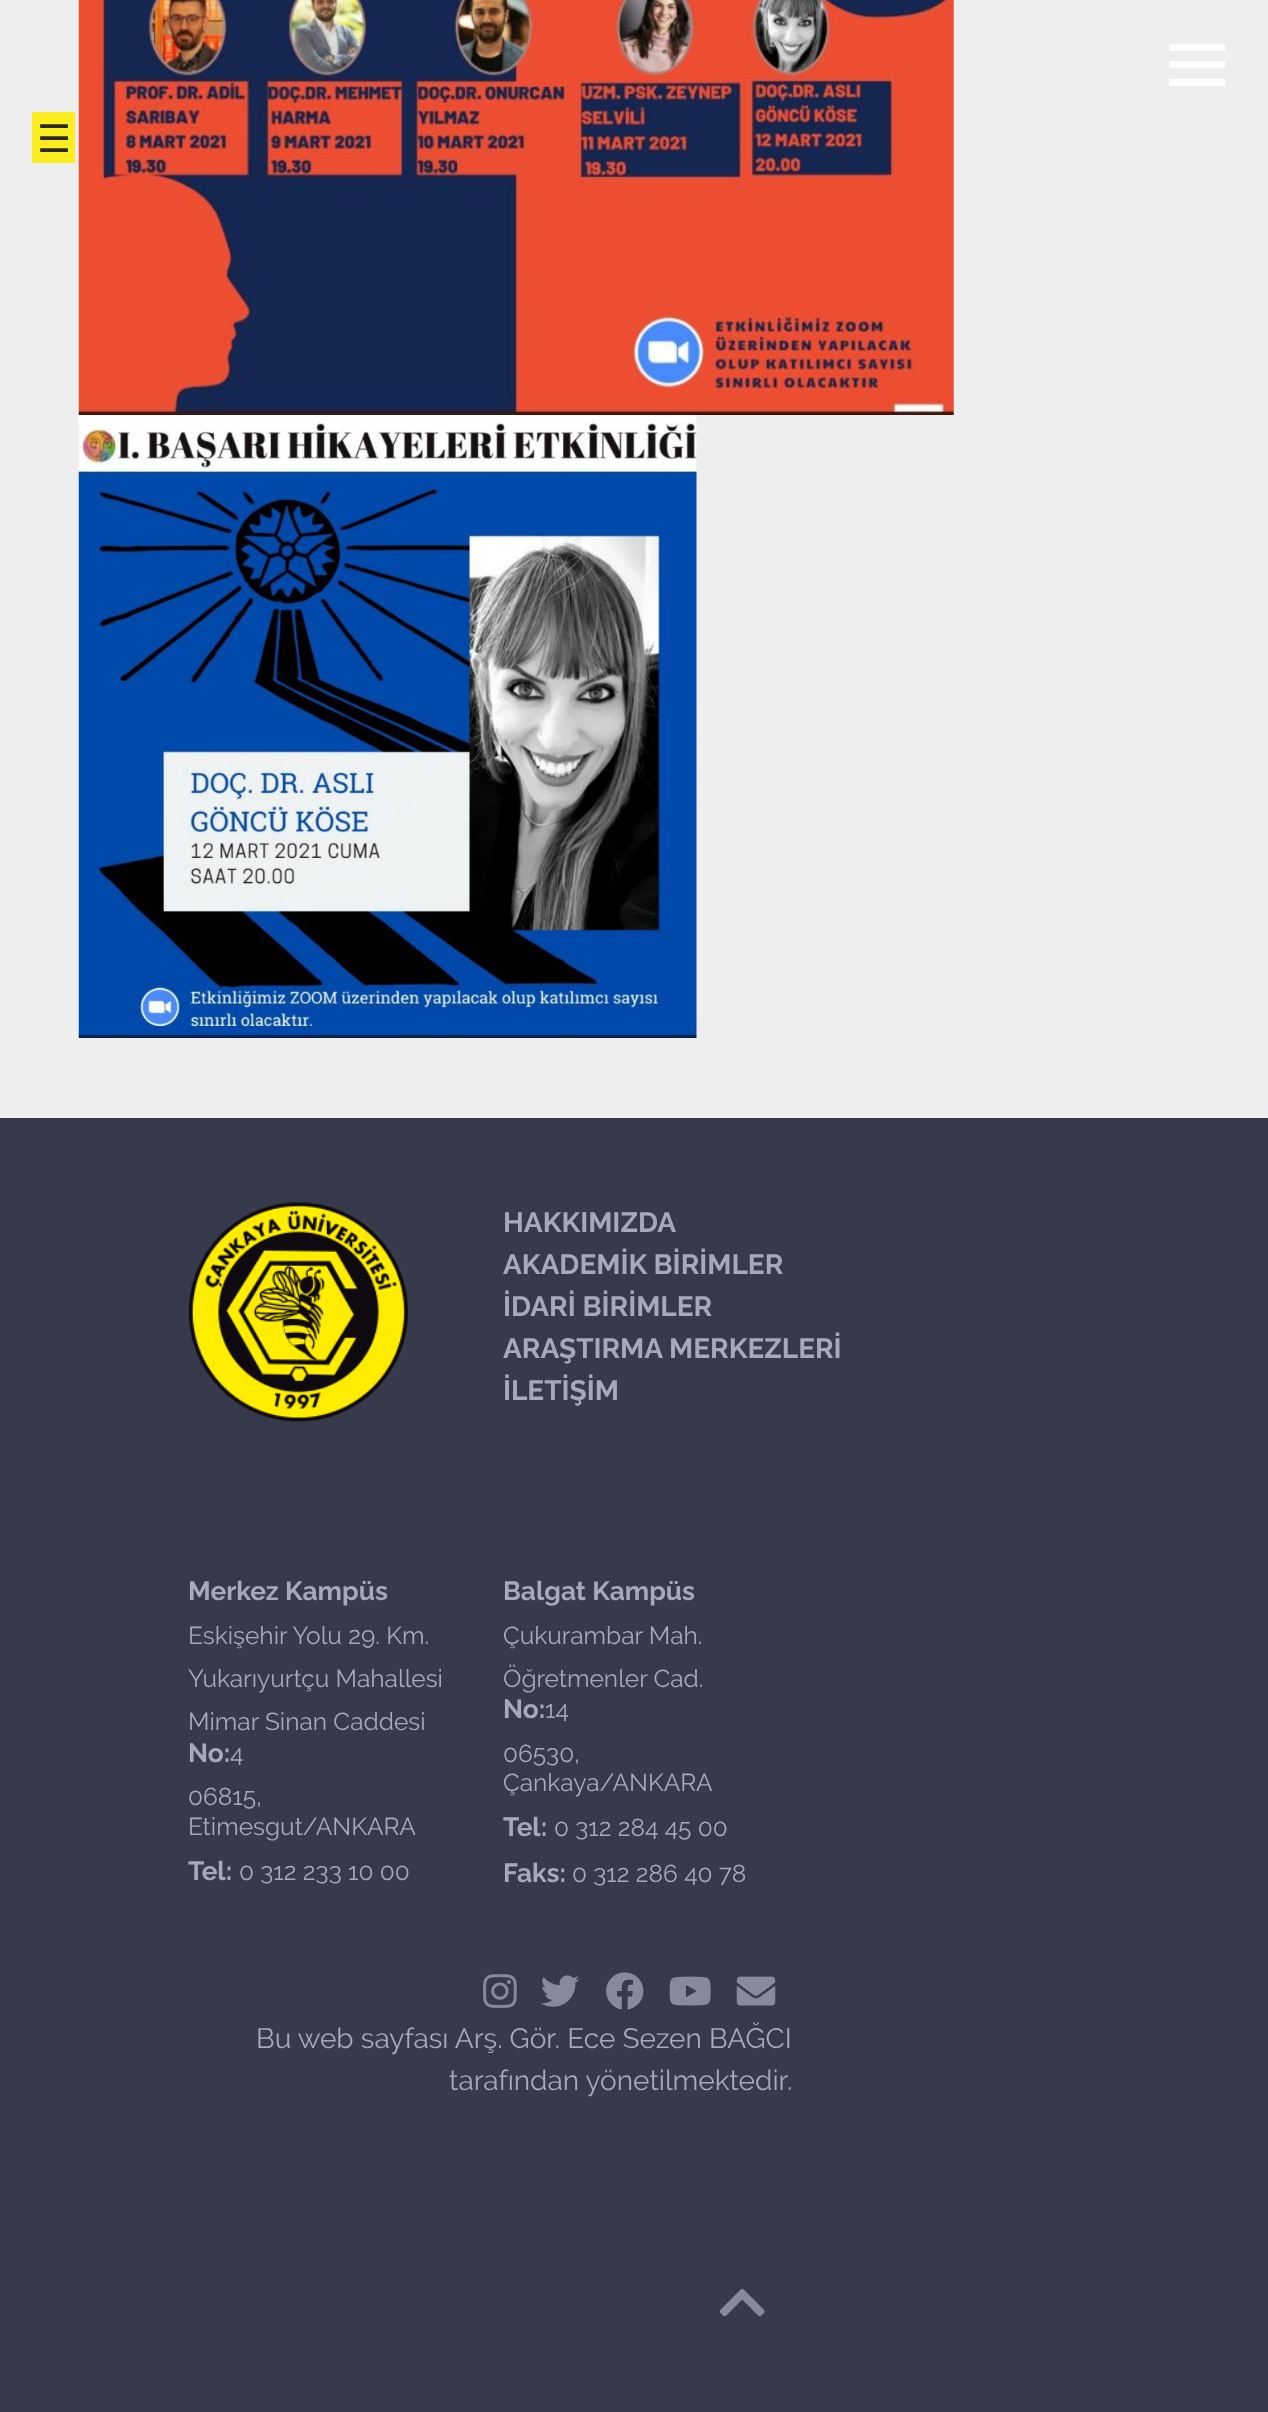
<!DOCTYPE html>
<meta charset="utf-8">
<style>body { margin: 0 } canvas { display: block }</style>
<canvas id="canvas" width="1268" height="2412"></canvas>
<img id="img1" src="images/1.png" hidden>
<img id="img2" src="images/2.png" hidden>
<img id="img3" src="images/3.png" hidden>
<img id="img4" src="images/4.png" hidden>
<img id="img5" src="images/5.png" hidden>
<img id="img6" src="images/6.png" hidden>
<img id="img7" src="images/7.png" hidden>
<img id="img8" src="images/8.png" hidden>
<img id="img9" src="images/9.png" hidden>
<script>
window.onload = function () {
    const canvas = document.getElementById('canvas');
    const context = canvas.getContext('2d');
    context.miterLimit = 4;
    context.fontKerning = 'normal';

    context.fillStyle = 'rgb(55, 58, 75)';
    context.fillRect(0, 0, 1268, 2412);
    context.fillStyle = 'rgb(238, 238, 238)';
    context.fillRect(0, 0, 1268, 1118);
    context.drawImage(document.getElementById('img1'), 78, 0, 876, 415);
    context.drawImage(document.getElementById('img2'), 78, 415, 619, 623);
    context.fillStyle = 'rgb(255, 255, 255)';
    context.fillRect(1169, 44, 56, 7);
    context.fillRect(1169, 61, 56, 7);
    context.fillRect(1169, 79, 56, 7);
    context.fillStyle = 'rgb(251, 237, 32)';
    context.fillRect(32, 112, 43, 51);
    context.drawImage(document.getElementById('img3'), 189, 1202, 219, 220);
    context.drawImage(document.getElementById('img4'), 483, 1974, 34, 34);
    context.drawImage(document.getElementById('img5'), 541, 1975, 38, 32);
    context.drawImage(document.getElementById('img6'), 606, 1972, 38, 38);
    context.drawImage(document.getElementById('img7'), 669, 1976, 42, 30);
    context.drawImage(document.getElementById('img8'), 736, 1976, 40, 30);
    context.drawImage(document.getElementById('img9'), 719, 2289, 46, 28);
    context.font = '38px DejaVu Sans';
    context.fillStyle = 'rgb(43, 40, 44)';
    context.fillText('☰', 37, 152);
    context.font = 'bold 28px Raleway';
    context.fillStyle = 'rgb(166, 169, 186)';
    context.fillText('HAKKIMIZDA', 503, 1232);
    context.fillText('AKADEMİK BİRİMLER', 503, 1274);
    context.fillText('İDARİ BİRİMLER', 503, 1316);
    context.fillText('ARAŞTIRMA MERKEZLERİ', 503, 1358);
    context.fillText('İLETİŞİM', 503, 1400);
    context.font = 'bold 26.25px Raleway';
    context.fillText('Merkez Kampüs', 188, 1600);
    context.font = '24.5px Raleway';
    context.fillText('Eskişehir Yolu 29. Km.', 188, 1644);
    context.fillText('Yukarıyurtçu Mahallesi', 188, 1687);
    context.fillText('Mimar Sinan Caddesi', 188, 1730);
    context.font = 'bold 26.25px Raleway';
    context.fillText('No:', 188, 1762);
    context.font = '24.5px Raleway';
    context.fillText('4', 230, 1762);
    context.fillText('06815,', 188, 1805);
    context.fillText('Etimesgut/ANKARA', 188, 1835);
    context.font = 'bold 26.25px Raleway';
    context.fillText('Tel:', 188, 1880);
    context.font = '24.5px Raleway';
    context.fillText('0 312 233 10 00', 239, 1880);
    context.font = 'bold 26.25px Raleway';
    context.fillText('Balgat Kampüs', 503, 1600);
    context.font = '24.5px Raleway';
    context.fillText('Çukurambar Mah.', 503, 1644);
    context.fillText('Öğretmenler Cad.', 503, 1687);
    context.font = 'bold 26.25px Raleway';
    context.fillText('No:', 503, 1718);
    context.font = '24.5px Raleway';
    context.fillText('14', 545, 1718);
    context.fillText('06530,', 503, 1762);
    context.fillText('Çankaya/ANKARA', 503, 1791);
    context.font = 'bold 26.25px Raleway';
    context.fillText('Tel:', 503, 1836);
    context.font = '24.5px Raleway';
    context.fillText('0 312 284 45 00', 554, 1836);
    context.font = 'bold 26.25px Raleway';
    context.fillText('Faks:', 503, 1882);
    context.font = '24.5px Raleway';
    context.fillText('0 312 286 40 78', 572, 1882);
    context.font = '28px Raleway';
    context.fillText('Bu web sayfası Arş. Gör. Ece Sezen BAĞCI', 256, 2048);
    context.fillText('tarafından yönetilmektedir.', 449, 2090);
};
</script>
